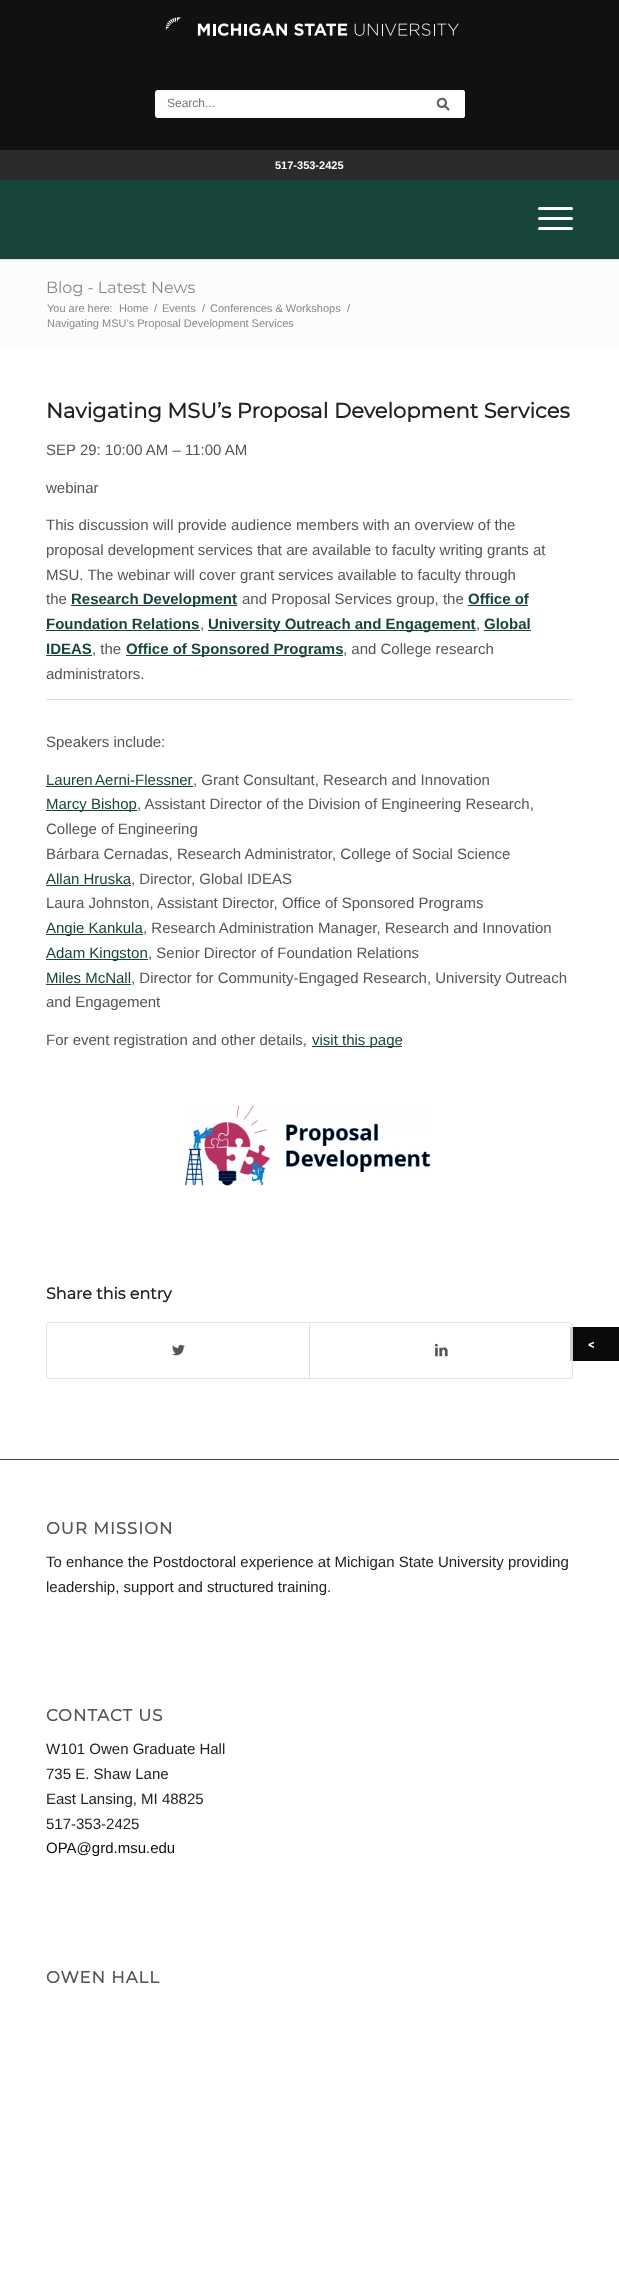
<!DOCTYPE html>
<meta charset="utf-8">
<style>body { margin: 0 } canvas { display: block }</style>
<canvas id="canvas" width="619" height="2269"></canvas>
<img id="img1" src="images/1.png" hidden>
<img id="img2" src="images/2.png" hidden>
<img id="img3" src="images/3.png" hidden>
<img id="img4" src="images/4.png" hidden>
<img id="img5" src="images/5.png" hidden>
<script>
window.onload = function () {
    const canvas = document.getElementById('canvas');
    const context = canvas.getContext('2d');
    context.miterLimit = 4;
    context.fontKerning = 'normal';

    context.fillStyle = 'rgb(17, 17, 17)';
    context.fillRect(0, 0, 619, 2269);
    context.drawImage(document.getElementById('img1'), 165, 17, 294, 19);
    context.fillStyle = 'rgb(255, 255, 255)';
    context.beginPath();
    context.roundRect(155, 90, 310, 28, 3);
    context.fill();
    context.beginPath();
    context.roundRect(421, 90, 44, 28, [0, 3, 3, 0]);
    context.fill();
    context.drawImage(document.getElementById('img2'), 436, 97, 14, 14);
    context.fillStyle = 'rgb(43, 43, 43)';
    context.fillRect(0, 150, 619, 30);
    context.fillStyle = 'rgb(24, 69, 59)';
    context.fillRect(0, 180, 619, 79);
    context.fillStyle = 'rgb(255, 255, 255)';
    context.beginPath();
    context.roundRect(538, 217, 35, 3, 1.5);
    context.fill();
    context.beginPath();
    context.roundRect(538, 207, 35, 3, 1.5);
    context.fill();
    context.beginPath();
    context.roundRect(538, 227, 35, 3, 1.5);
    context.fill();
    context.fillStyle = 'rgb(252, 252, 252)';
    context.fillRect(0, 260, 619, 87);
    context.fillStyle = 'rgb(225, 225, 225)';
    context.fillRect(0, 259, 619, 1);
    context.fillStyle = 'rgb(255, 255, 255)';
    context.fillRect(0, 347, 619, 1112);
    context.fillStyle = 'rgb(24, 69, 59)';
    context.fillRect(71, 605, 166, 1);
    context.fillRect(468, 605, 60, 1);
    context.fillRect(46, 630, 154, 1);
    context.fillRect(208, 630, 268, 1);
    context.fillRect(484, 630, 47, 1);
    context.fillRect(46, 655, 46, 1);
    context.fillRect(126, 655, 217, 1);
    context.fillStyle = 'rgb(221, 221, 221)';
    context.fillRect(46, 699, 527, 1);
    context.fillStyle = 'rgb(24, 69, 59)';
    context.fillRect(46, 786, 147, 1);
    context.fillRect(46, 810, 91, 1);
    context.fillRect(46, 885, 85, 1);
    context.fillRect(46, 934, 97, 1);
    context.fillRect(46, 959, 102, 1);
    context.fillRect(46, 984, 85, 1);
    context.fillRect(312, 1046, 90, 1);
    context.drawImage(document.getElementById('img3'), 184, 1105, 247, 81);
    context.beginPath();
    context.roundRect(46.5, 1322.5, 526, 56, 2.5);
    context.strokeStyle = 'rgb(225, 225, 225)';
    context.stroke();
    context.drawImage(document.getElementById('img4'), 172, 1344, 13, 12);
    context.fillStyle = 'rgb(225, 225, 225)';
    context.fillRect(309, 1323, 1, 55);
    context.drawImage(document.getElementById('img5'), 435, 1343, 13, 14);
    context.fillStyle = 'rgb(255, 255, 255)';
    context.fillRect(0, 1460, 619, 809);
    context.fillStyle = 'rgb(68, 68, 68)';
    context.fillRect(0, 1459, 619, 1);
    context.fillStyle = 'rgb(10, 10, 10)';
    context.fillRect(573, 1327, 46, 34);
    context.fillStyle = 'rgb(206, 206, 206)';
    context.fillRect(570, 1327, 3, 34);
    context.font = '12px Liberation Sans';
    context.fillStyle = 'rgb(117, 117, 117)';
    context.fillText('Search...', 167, 107);
    context.font = 'bold 11px Liberation Sans';
    context.fillStyle = 'rgb(255, 255, 255)';
    context.fillText('517-353-2425', 275, 169);
    context.font = '100 16px Montserrat';
    context.fillStyle = 'rgb(136, 136, 136)';
    context.fillText('Blog - Latest News', 46, 293);
    context.font = '11px Liberation Sans';
    context.fillText('You are here:', 47, 312);
    context.fillText('Home', 119, 312);
    context.fillText('/', 154, 312);
    context.fillText('Events', 162, 312);
    context.fillText('/', 202, 312);
    context.fillText('Conferences & Workshops', 210, 312);
    context.fillText('/', 347, 312);
    context.fillText('Navigating MSU’s Proposal Development Services', 47, 327);
    context.font = 'bold 21px Montserrat';
    context.fillStyle = 'rgb(34, 34, 34)';
    context.fillText('Navigating MSU’s Proposal Development Services', 46, 418);
    context.font = '15px Liberation Sans';
    context.fillStyle = 'rgb(85, 85, 85)';
    context.fillText('SEP 29: 10:00 AM – 11:00 AM', 46, 455);
    context.fillText('webinar', 46, 493);
    context.fillText('This discussion will provide audience members with an overview of the', 46, 530);
    context.fillText('proposal development services that are available to faculty writing grants at', 46, 555);
    context.fillText('MSU. The webinar will cover grant services available to faculty through', 46, 580);
    context.fillText('the', 46, 604);
    context.font = 'bold 15px Liberation Sans';
    context.fillStyle = 'rgb(24, 69, 59)';
    context.fillText('Research Development', 71, 604);
    context.font = '15px Liberation Sans';
    context.fillStyle = 'rgb(85, 85, 85)';
    context.fillText('and Proposal Services group, the', 242, 604);
    context.font = 'bold 15px Liberation Sans';
    context.fillStyle = 'rgb(24, 69, 59)';
    context.fillText('Office of', 468, 604);
    context.fillText('Foundation Relations', 46, 629);
    context.font = '15px Liberation Sans';
    context.fillStyle = 'rgb(85, 85, 85)';
    context.fillText(',', 200, 629);
    context.font = 'bold 15px Liberation Sans';
    context.fillStyle = 'rgb(24, 69, 59)';
    context.fillText('University Outreach and Engagement', 208, 629);
    context.font = '15px Liberation Sans';
    context.fillStyle = 'rgb(85, 85, 85)';
    context.fillText(',', 476, 629);
    context.font = 'bold 15px Liberation Sans';
    context.fillStyle = 'rgb(24, 69, 59)';
    context.fillText('Global', 484, 629);
    context.fillText('IDEAS', 46, 654);
    context.font = '15px Liberation Sans';
    context.fillStyle = 'rgb(85, 85, 85)';
    context.fillText(', the', 92, 654);
    context.font = 'bold 15px Liberation Sans';
    context.fillStyle = 'rgb(24, 69, 59)';
    context.fillText('Office of Sponsored Programs', 126, 654);
    context.font = '15px Liberation Sans';
    context.fillStyle = 'rgb(85, 85, 85)';
    context.fillText(', and College research', 343, 654);
    context.fillText('administrators.', 46, 679);
    context.fillText('Speakers include:', 46, 747);
    context.wordSpacing = '-1px';
    context.fillStyle = 'rgb(24, 69, 59)';
    context.fillText('Lauren Aerni-Flessner', 46, 785);
    context.wordSpacing = '0px';
    context.fillStyle = 'rgb(85, 85, 85)';
    context.fillText(', Grant Consultant, Research and Innovation', 193, 785);
    context.fillStyle = 'rgb(24, 69, 59)';
    context.fillText('Marcy Bishop', 46, 809);
    context.fillStyle = 'rgb(85, 85, 85)';
    context.fillText(', Assistant Director of the Division of Engineering Research,', 137, 809);
    context.fillText('College of Engineering', 46, 834);
    context.fillText('Bárbara Cernadas, Research Administrator, College of Social Science', 46, 859);
    context.fillStyle = 'rgb(24, 69, 59)';
    context.fillText('Allan Hruska', 46, 884);
    context.fillStyle = 'rgb(85, 85, 85)';
    context.fillText(', Director, Global IDEAS', 131, 884);
    context.fillText('Laura Johnston, Assistant Director, Office of Sponsored Programs', 46, 908);
    context.fillStyle = 'rgb(24, 69, 59)';
    context.fillText('Angie Kankula', 46, 933);
    context.fillStyle = 'rgb(85, 85, 85)';
    context.fillText(', Research Administration Manager, Research and Innovation', 143, 933);
    context.fillStyle = 'rgb(24, 69, 59)';
    context.fillText('Adam Kingston', 46, 958);
    context.fillStyle = 'rgb(85, 85, 85)';
    context.fillText(', Senior Director of Foundation Relations', 148, 958);
    context.fillStyle = 'rgb(24, 69, 59)';
    context.fillText('Miles McNall', 46, 983);
    context.fillStyle = 'rgb(85, 85, 85)';
    context.fillText(', Director for Community-Engaged Research, University Outreach', 131, 983);
    context.fillText('and Engagement', 46, 1007);
    context.fillText('For event registration and other details,', 46, 1045);
    context.fillStyle = 'rgb(24, 69, 59)';
    context.fillText('visit this page', 312, 1045);
    context.font = 'bold 16px Montserrat';
    context.fillStyle = 'rgb(34, 34, 34)';
    context.fillText('Share this entry', 46, 1299);
    context.letterSpacing = '1px';
    context.font = 'bold 16.5px Montserrat';
    context.fillStyle = 'rgb(85, 85, 85)';
    context.fillText('OUR MISSION', 46, 1534);
    context.letterSpacing = '0px';
    context.font = '15px Liberation Sans';
    context.fillStyle = 'rgb(34, 34, 34)';
    context.fillText('To enhance the Postdoctoral experience at Michigan State University providing', 46, 1567);
    context.fillText('leadership, support and structured training.', 46, 1592);
    context.letterSpacing = '1px';
    context.font = 'bold 16.5px Montserrat';
    context.fillStyle = 'rgb(85, 85, 85)';
    context.fillText('CONTACT US', 46, 1721);
    context.letterSpacing = '0px';
    context.font = '15px Liberation Sans';
    context.fillStyle = 'rgb(34, 34, 34)';
    context.fillText('W101 Owen Graduate Hall', 46, 1754);
    context.fillText('735 E. Shaw Lane', 46, 1779);
    context.fillText('East Lansing, MI 48825', 46, 1804);
    context.fillText('517-353-2425', 46, 1829);
    context.fillStyle = 'rgb(13, 13, 13)';
    context.fillText('OPA@grd.msu.edu', 46, 1853);
    context.letterSpacing = '1px';
    context.font = 'bold 16.5px Montserrat';
    context.fillStyle = 'rgb(85, 85, 85)';
    context.fillText('OWEN HALL', 46, 1983);
    context.letterSpacing = '0px';
    context.font = 'bold 15px Cabin';
    context.fillStyle = 'rgb(255, 255, 255)';
    context.fillText('<', 588, 1349);
};
</script>
